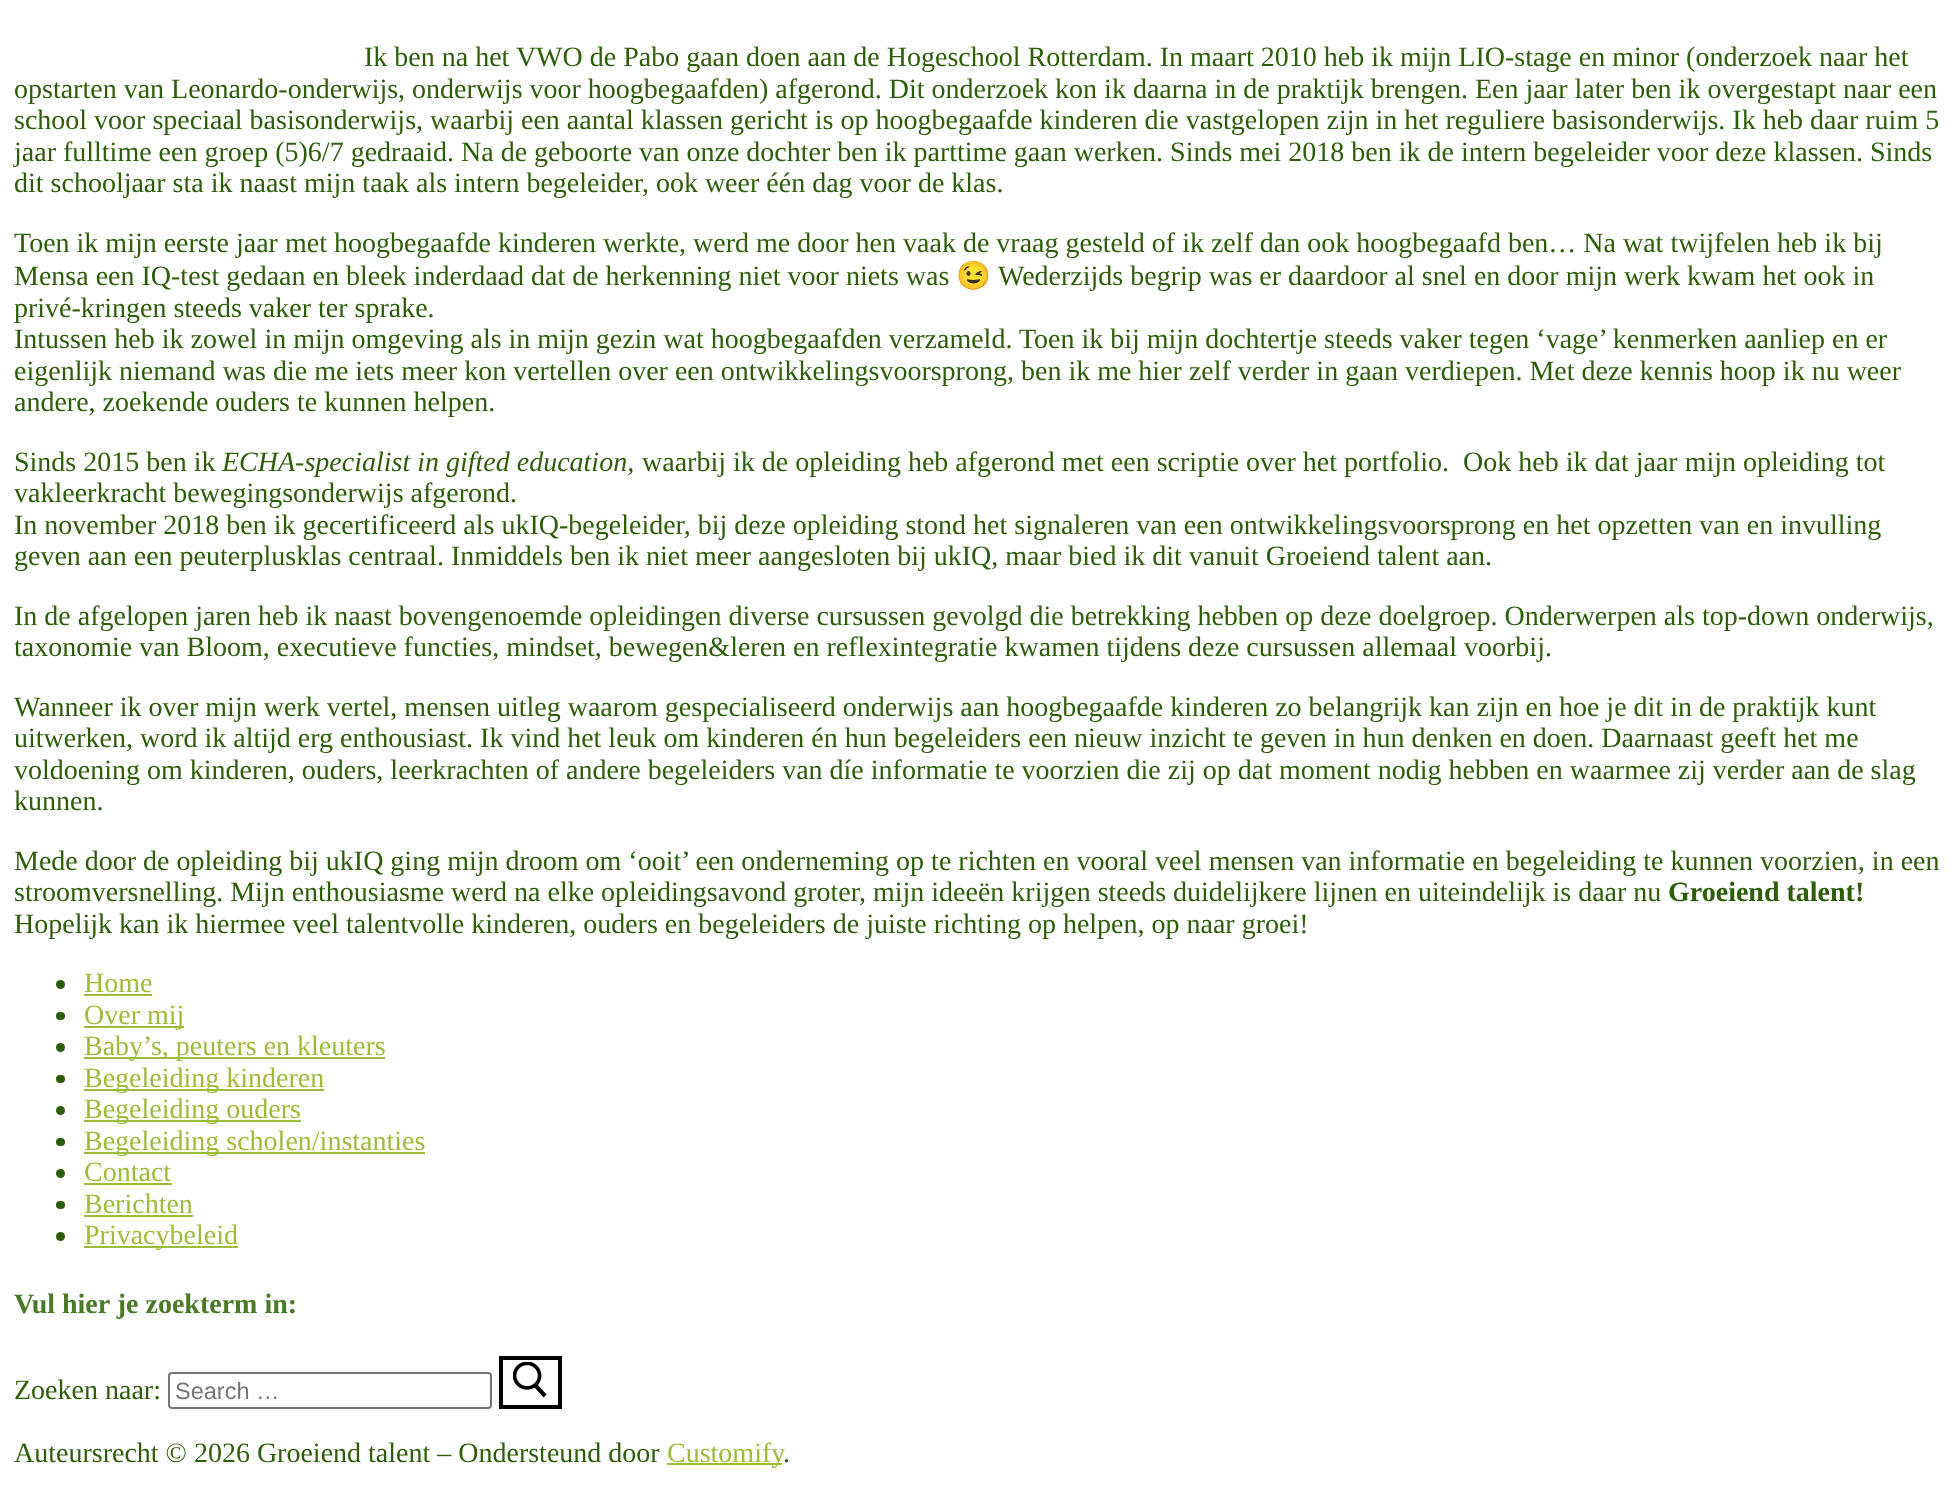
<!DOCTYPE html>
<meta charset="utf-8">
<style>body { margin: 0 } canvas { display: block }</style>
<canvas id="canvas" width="1957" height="1487"></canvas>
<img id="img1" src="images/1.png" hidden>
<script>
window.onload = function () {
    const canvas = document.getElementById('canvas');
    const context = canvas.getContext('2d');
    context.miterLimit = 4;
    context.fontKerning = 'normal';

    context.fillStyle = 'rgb(255, 255, 255)';
    context.fillRect(0, 0, 1957, 1487);
    context.fillStyle = 'rgb(43, 94, 7)';
    context.beginPath();
    context.arc(60.5, 984.5, 4.5, 0, 2 * Math.PI);
    context.fill();
    context.fillStyle = 'rgb(156, 188, 58)';
    context.fillRect(84, 994, 68, 2);
    context.fillStyle = 'rgb(43, 94, 7)';
    context.beginPath();
    context.roundRect(56, 1012, 9, 8, 4);
    context.fill();
    context.fillStyle = 'rgb(156, 188, 58)';
    context.fillRect(84, 1026, 100, 2);
    context.fillStyle = 'rgb(43, 94, 7)';
    context.beginPath();
    context.arc(60.5, 1047.5, 4.5, 0, 2 * Math.PI);
    context.fill();
    context.fillStyle = 'rgb(156, 188, 58)';
    context.fillRect(84, 1057, 301, 2);
    context.fillStyle = 'rgb(43, 94, 7)';
    context.beginPath();
    context.roundRect(56, 1075, 9, 8, 4);
    context.fill();
    context.fillStyle = 'rgb(156, 188, 58)';
    context.fillRect(84, 1089, 240, 2);
    context.fillStyle = 'rgb(43, 94, 7)';
    context.beginPath();
    context.arc(60.5, 1110.5, 4.5, 0, 2 * Math.PI);
    context.fill();
    context.fillStyle = 'rgb(156, 188, 58)';
    context.fillRect(84, 1120, 217, 2);
    context.fillStyle = 'rgb(43, 94, 7)';
    context.beginPath();
    context.roundRect(56, 1138, 9, 8, 4);
    context.fill();
    context.fillStyle = 'rgb(156, 188, 58)';
    context.fillRect(84, 1152, 341, 2);
    context.fillStyle = 'rgb(43, 94, 7)';
    context.beginPath();
    context.arc(60.5, 1173.5, 4.5, 0, 2 * Math.PI);
    context.fill();
    context.fillStyle = 'rgb(156, 188, 58)';
    context.fillRect(84, 1183, 88, 2);
    context.fillStyle = 'rgb(43, 94, 7)';
    context.beginPath();
    context.roundRect(56, 1201, 9, 8, 4);
    context.fill();
    context.fillStyle = 'rgb(156, 188, 58)';
    context.fillRect(84, 1215, 109, 2);
    context.fillStyle = 'rgb(43, 94, 7)';
    context.beginPath();
    context.arc(60.5, 1236.5, 4.5, 0, 2 * Math.PI);
    context.fill();
    context.fillStyle = 'rgb(156, 188, 58)';
    context.fillRect(84, 1246, 154, 2);
    context.beginPath();
    context.roundRect(169, 1373, 322, 35, 3);
    context.strokeStyle = 'rgb(118, 118, 118)';
    context.lineWidth = 2;
    context.stroke();
    context.strokeStyle = 'rgb(0, 0, 0)';
    context.lineWidth = 4;
    context.strokeRect(501, 1358, 59, 49);
    context.drawImage(document.getElementById('img1'), 513, 1362, 34, 36);
    context.fillRect(667, 1463, 115, 2);
    context.font = '28px Liberation Serif';
    context.fillStyle = 'rgb(43, 94, 7)';
    context.fillText('Ik ben na het VWO de Pabo gaan doen aan de Hogeschool Rotterdam. In maart 2010 heb ik mijn LIO-stage en minor (onderzoek naar het', 364, 66);
    context.fillText('opstarten van Leonardo-onderwijs, onderwijs voor hoogbegaafden) afgerond. Dit onderzoek kon ik daarna in de praktijk brengen. Een jaar later ben ik overgestapt naar een', 14, 98);
    context.fillText('school voor speciaal basisonderwijs, waarbij een aantal klassen gericht is op hoogbegaafde kinderen die vastgelopen zijn in het reguliere basisonderwijs. Ik heb daar ruim 5', 14, 129);
    context.fillText('jaar fulltime een groep (5)6/7 gedraaid. Na de geboorte van onze dochter ben ik parttime gaan werken. Sinds mei 2018 ben ik de intern begeleider voor deze klassen. Sinds', 14, 161);
    context.fillText('dit schooljaar sta ik naast mijn taak als intern begeleider, ook weer één dag voor de klas.', 14, 192);
    context.fillText('Toen ik mijn eerste jaar met hoogbegaafde kinderen werkte, werd me door hen vaak de vraag gesteld of ik zelf dan ook hoogbegaafd ben… Na wat twijfelen heb ik bij', 14, 252);
    context.fillText('Mensa een IQ-test gedaan en bleek inderdaad dat de herkenning niet voor niets was', 14, 285);
    context.font = '28px Noto Color Emoji';
    context.fillText('😉', 956, 285);
    context.font = '28px Liberation Serif';
    context.fillText('Wederzijds begrip was er daardoor al snel en door mijn werk kwam het ook in', 998, 285);
    context.fillText('privé-kringen steeds vaker ter sprake.', 14, 317);
    context.fillText('Intussen heb ik zowel in mijn omgeving als in mijn gezin wat hoogbegaafden verzameld. Toen ik bij mijn dochtertje steeds vaker tegen ‘vage’ kenmerken aanliep en er', 14, 348);
    context.fillText('eigenlijk niemand was die me iets meer kon vertellen over een ontwikkelingsvoorsprong, ben ik me hier zelf verder in gaan verdiepen. Met deze kennis hoop ik nu weer', 14, 380);
    context.fillText('andere, zoekende ouders te kunnen helpen.', 14, 411);
    context.fillText('Sinds 2015 ben ik', 14, 471);
    context.font = 'italic 28px Liberation Serif';
    context.fillText('ECHA-specialist in gifted education,', 222, 471);
    context.font = '28px Liberation Serif';
    context.fillText('waarbij ik de opleiding heb afgerond met een scriptie over het portfolio.  Ook heb ik dat jaar mijn opleiding tot', 642, 471);
    context.fillText('vakleerkracht bewegingsonderwijs afgerond.', 14, 502);
    context.fillText('In november 2018 ben ik gecertificeerd als ukIQ-begeleider, bij deze opleiding stond het signaleren van een ontwikkelingsvoorsprong en het opzetten van en invulling', 14, 534);
    context.fillText('geven aan een peuterplusklas centraal. Inmiddels ben ik niet meer aangesloten bij ukIQ, maar bied ik dit vanuit Groeiend talent aan.', 14, 565);
    context.fillText('In de afgelopen jaren heb ik naast bovengenoemde opleidingen diverse cursussen gevolgd die betrekking hebben op deze doelgroep. Onderwerpen als top-down onderwijs,', 14, 625);
    context.fillText('taxonomie van Bloom, executieve functies, mindset, bewegen&leren en reflexintegratie kwamen tijdens deze cursussen allemaal voorbij.', 14, 656);
    context.fillText('Wanneer ik over mijn werk vertel, mensen uitleg waarom gespecialiseerd onderwijs aan hoogbegaafde kinderen zo belangrijk kan zijn en hoe je dit in de praktijk kunt', 14, 716);
    context.fillText('uitwerken, word ik altijd erg enthousiast. Ik vind het leuk om kinderen én hun begeleiders een nieuw inzicht te geven in hun denken en doen. Daarnaast geeft het me', 14, 747);
    context.fillText('voldoening om kinderen, ouders, leerkrachten of andere begeleiders van díe informatie te voorzien die zij op dat moment nodig hebben en waarmee zij verder aan de slag', 14, 779);
    context.fillText('kunnen.', 14, 810);
    context.fillText('Mede door de opleiding bij ukIQ ging mijn droom om ‘ooit’ een onderneming op te richten en vooral veel mensen van informatie en begeleiding te kunnen voorzien, in een', 14, 870);
    context.fillText('stroomversnelling. Mijn enthousiasme werd na elke opleidingsavond groter, mijn ideeën krijgen steeds duidelijkere lijnen en uiteindelijk is daar nu', 14, 901);
    context.font = 'bold 28px Liberation Serif';
    context.fillText('Groeiend talent!', 1668, 901);
    context.font = '28px Liberation Serif';
    context.fillText('Hopelijk kan ik hiermee veel talentvolle kinderen, ouders en begeleiders de juiste richting op helpen, op naar groei!', 14, 933);
    context.fillStyle = 'rgb(156, 188, 58)';
    context.fillText('Home', 84, 992);
    context.fillText('Over mij', 84, 1024);
    context.fillText('Baby’s, peuters en kleuters', 84, 1055);
    context.fillText('Begeleiding kinderen', 84, 1087);
    context.fillText('Begeleiding ouders', 84, 1118);
    context.fillText('Begeleiding scholen/instanties', 84, 1150);
    context.fillText('Contact', 84, 1181);
    context.fillText('Berichten', 84, 1213);
    context.fillText('Privacybeleid', 84, 1244);
    context.font = 'bold 28px Liberation Serif';
    context.fillStyle = 'rgb(73, 122, 37)';
    context.fillText('Vul hier je zoekterm in:', 14, 1313);
    context.font = '28px Liberation Serif';
    context.fillStyle = 'rgb(43, 94, 7)';
    context.fillText('Zoeken naar:', 14, 1399);
    context.font = '23.5px Liberation Sans';
    context.fillStyle = 'rgb(117, 117, 117)';
    context.fillText('Search …', 175, 1399);
    context.font = '28px Liberation Serif';
    context.fillStyle = 'rgb(43, 94, 7)';
    context.fillText('Auteursrecht © 2026 Groeiend talent – Ondersteund door', 14, 1462);
    context.fillStyle = 'rgb(156, 188, 58)';
    context.fillText('Customify', 667, 1462);
    context.fillStyle = 'rgb(43, 94, 7)';
    context.fillText('.', 783, 1462);
};
</script>
